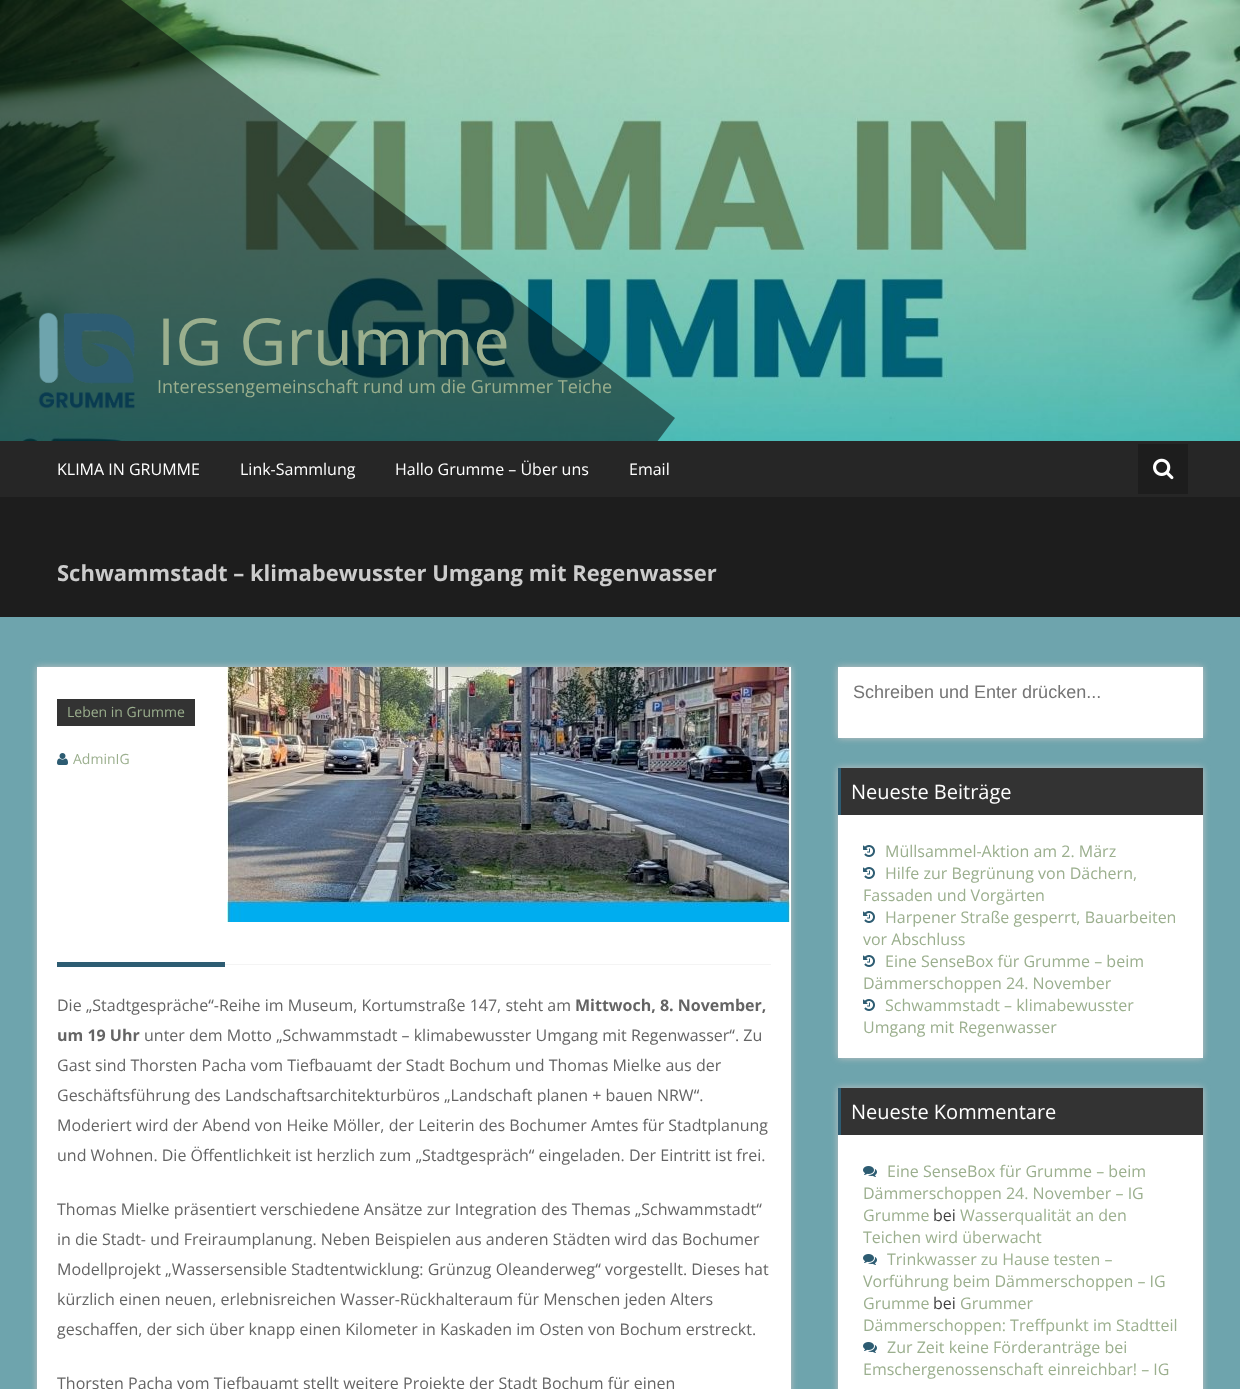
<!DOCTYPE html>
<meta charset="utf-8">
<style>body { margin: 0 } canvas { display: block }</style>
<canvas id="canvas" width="1240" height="1389"></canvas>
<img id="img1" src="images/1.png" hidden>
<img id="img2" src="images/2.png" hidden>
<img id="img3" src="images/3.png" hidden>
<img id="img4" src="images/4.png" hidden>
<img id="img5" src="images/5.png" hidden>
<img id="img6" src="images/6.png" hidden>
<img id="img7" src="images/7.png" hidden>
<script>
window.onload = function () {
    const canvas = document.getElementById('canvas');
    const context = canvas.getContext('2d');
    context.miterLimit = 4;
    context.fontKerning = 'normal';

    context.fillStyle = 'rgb(110, 164, 173)';
    context.fillRect(0, 0, 1240, 1389);
    context.drawImage(document.getElementById('img1'), 0, 0, 1240, 441);
    context.save();
    context.beginPath();
    context.rect(0, 0, 1240, 441);
    context.clip();
    context.fillStyle = 'rgba(0, 0, 0, 0.5)';
    context.beginPath();
    context.moveTo(-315, -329);
    context.lineTo(675, 418);
    context.lineTo(73, 1216);
    context.lineTo(-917, 470);
    context.closePath();
    context.fill();
    context.restore();
    context.drawImage(document.getElementById('img2'), 38, 312, 97, 97);
    context.fillStyle = 'rgb(38, 38, 38)';
    context.fillRect(0, 441, 1240, 56);
    context.fillStyle = 'rgb(29, 29, 29)';
    context.fillRect(1138, 444, 50, 50);
    context.drawImage(document.getElementById('img3'), 1153, 458, 21, 22);
    context.fillRect(0, 497, 1240, 120);
    context.fillStyle = 'rgb(194, 194, 194)';
    context.filter = 'blur(3.5px)';
    context.beginPath();
    context.rect(37, 667, 754, 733);
    context.fill();
    context.filter = 'none';
    context.fillStyle = 'rgb(255, 255, 255)';
    context.fillRect(37, 667, 754, 722);
    context.fillStyle = 'rgb(51, 51, 51)';
    context.fillRect(57, 699, 138, 27);
    context.drawImage(document.getElementById('img4'), 57, 753, 11, 12);
    context.drawImage(document.getElementById('img5'), 227, 667, 563, 255);
    context.fillStyle = 'rgb(45, 92, 114)';
    context.fillRect(57, 962, 168, 5);
    context.fillStyle = 'rgb(244, 244, 244)';
    context.fillRect(225, 964, 546, 1);
    context.fillStyle = 'rgb(194, 194, 194)';
    context.filter = 'blur(3.5px)';
    context.beginPath();
    context.rect(838, 667, 365, 71);
    context.fill();
    context.filter = 'none';
    context.fillStyle = 'rgb(255, 255, 255)';
    context.fillRect(838, 667, 365, 71);
    context.fillStyle = 'rgb(194, 194, 194)';
    context.filter = 'blur(3.5px)';
    context.beginPath();
    context.rect(838, 768, 365, 290);
    context.fill();
    context.filter = 'none';
    context.fillStyle = 'rgb(255, 255, 255)';
    context.fillRect(838, 815, 365, 243);
    context.fillStyle = 'rgb(51, 51, 51)';
    context.fillRect(841, 768, 362, 47);
    context.fillStyle = 'rgb(45, 92, 114)';
    context.fillRect(838, 768, 3, 47);
    context.drawImage(document.getElementById('img6'), 863, 845, 12, 12);
    context.drawImage(document.getElementById('img6'), 863, 867, 12, 12);
    context.drawImage(document.getElementById('img6'), 863, 911, 12, 12);
    context.drawImage(document.getElementById('img6'), 863, 955, 12, 12);
    context.drawImage(document.getElementById('img6'), 863, 999, 12, 12);
    context.fillStyle = 'rgb(194, 194, 194)';
    context.filter = 'blur(3.5px)';
    context.beginPath();
    context.rect(838, 1088, 365, 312);
    context.fill();
    context.filter = 'none';
    context.fillStyle = 'rgb(255, 255, 255)';
    context.fillRect(838, 1135, 365, 254);
    context.fillStyle = 'rgb(51, 51, 51)';
    context.fillRect(841, 1088, 362, 47);
    context.fillStyle = 'rgb(45, 92, 114)';
    context.fillRect(838, 1088, 3, 47);
    context.drawImage(document.getElementById('img7'), 863, 1166, 14, 11);
    context.drawImage(document.getElementById('img7'), 863, 1254, 14, 11);
    context.drawImage(document.getElementById('img7'), 863, 1342, 14, 11);
    context.font = '65px Open Sans';
    context.fillStyle = 'rgb(155, 175, 142)';
    context.fillText('IG Grumme', 157, 365);
    context.font = '18px Open Sans';
    context.fillText('Interessengemeinschaft rund um die Grummer Teiche', 157, 393);
    context.font = '16px Open Sans';
    context.fillStyle = 'rgb(255, 255, 255)';
    context.fillText('KLIMA IN GRUMME', 57, 475);
    context.fillText('Link-Sammlung', 240, 475);
    context.fillText('Hallo Grumme – Über uns', 395, 475);
    context.fillText('Email', 629, 475);
    context.font = 'bold 22px Open Sans';
    context.fillStyle = 'rgb(204, 204, 204)';
    context.fillText('Schwammstadt – klimabewusster Umgang mit Regenwasser', 57, 581);
    context.font = '14px Open Sans';
    context.fillStyle = 'rgb(155, 175, 142)';
    context.fillText('Leben in Grumme', 67, 717);
    context.fillText('AdminIG', 73, 764);
    context.font = '16px Open Sans';
    context.fillStyle = 'rgb(100, 100, 100)';
    context.fillText('Die „Stadtgespräche“-Reihe im Museum, Kortumstraße 147, steht am', 57, 1011);
    context.font = 'bold 16px Open Sans';
    context.fillText('Mittwoch, 8. November,', 575, 1011);
    context.fillText('um 19 Uhr', 57, 1041);
    context.font = '16px Open Sans';
    context.fillText('unter dem Motto „Schwammstadt – klimabewusster Umgang mit Regenwasser“. Zu', 144, 1041);
    context.fillText('Gast sind Thorsten Pacha vom Tiefbauamt der Stadt Bochum und Thomas Mielke aus der', 57, 1071);
    context.fillText('Geschäftsführung des Landschaftsarchitekturbüros „Landschaft planen + bauen NRW“.', 57, 1101);
    context.fillText('Moderiert wird der Abend von Heike Möller, der Leiterin des Bochumer Amtes für Stadtplanung', 57, 1131);
    context.fillText('und Wohnen. Die Öffentlichkeit ist herzlich zum „Stadtgespräch“ eingeladen. Der Eintritt ist frei.', 57, 1161);
    context.fillText('Thomas Mielke präsentiert verschiedene Ansätze zur Integration des Themas „Schwammstadt“', 57, 1215);
    context.fillText('in die Stadt- und Freiraumplanung. Neben Beispielen aus anderen Städten wird das Bochumer', 57, 1245);
    context.fillText('Modellprojekt „Wassersensible Stadtentwicklung: Grünzug Oleanderweg“ vorgestellt. Dieses hat', 57, 1275);
    context.fillText('kürzlich einen neuen, erlebnisreichen Wasser-Rückhalteraum für Menschen jeden Alters', 57, 1305);
    context.fillText('geschaffen, der sich über knapp einen Kilometer in Kaskaden im Osten von Bochum erstreckt.', 57, 1335);
    context.fillText('Thorsten Pacha vom Tiefbauamt stellt weitere Projekte der Stadt Bochum für einen', 57, 1389);
    context.font = '18px Liberation Sans';
    context.fillStyle = 'rgb(117, 117, 117)';
    context.fillText('Schreiben und Enter drücken...', 853, 698);
    context.font = '20px Open Sans';
    context.fillStyle = 'rgb(255, 255, 255)';
    context.fillText('Neueste Beiträge', 851, 799);
    context.font = '16px Open Sans';
    context.fillStyle = 'rgb(155, 175, 142)';
    context.fillText('Müllsammel-Aktion am 2. März', 885, 857);
    context.fillText('Hilfe zur Begrünung von Dächern,', 885, 879);
    context.fillText('Fassaden und Vorgärten', 863, 901);
    context.fillText('Harpener Straße gesperrt, Bauarbeiten', 885, 923);
    context.fillText('vor Abschluss', 863, 945);
    context.fillText('Eine SenseBox für Grumme – beim', 885, 967);
    context.fillText('Dämmerschoppen 24. November', 863, 989);
    context.fillText('Schwammstadt – klimabewusster', 885, 1011);
    context.fillText('Umgang mit Regenwasser', 863, 1033);
    context.font = '20px Open Sans';
    context.fillStyle = 'rgb(255, 255, 255)';
    context.fillText('Neueste Kommentare', 851, 1119);
    context.font = '16px Open Sans';
    context.fillStyle = 'rgb(155, 175, 142)';
    context.fillText('Eine SenseBox für Grumme – beim', 887, 1177);
    context.fillText('Dämmerschoppen 24. November – IG', 863, 1199);
    context.fillText('Grumme', 863, 1221);
    context.fillStyle = 'rgb(64, 64, 64)';
    context.fillText('bei', 933, 1221);
    context.fillStyle = 'rgb(155, 175, 142)';
    context.fillText('Wasserqualität an den', 960, 1221);
    context.fillText('Teichen wird überwacht', 863, 1243);
    context.fillText('Trinkwasser zu Hause testen –', 887, 1265);
    context.fillText('Vorführung beim Dämmerschoppen – IG', 863, 1287);
    context.fillText('Grumme', 863, 1309);
    context.fillStyle = 'rgb(64, 64, 64)';
    context.fillText('bei', 933, 1309);
    context.fillStyle = 'rgb(155, 175, 142)';
    context.fillText('Grummer', 960, 1309);
    context.fillText('Dämmerschoppen: Treffpunkt im Stadtteil', 863, 1331);
    context.fillText('Zur Zeit keine Förderanträge bei', 887, 1353);
    context.fillText('Emschergenossenschaft einreichbar! – IG', 863, 1375);
};
</script>
